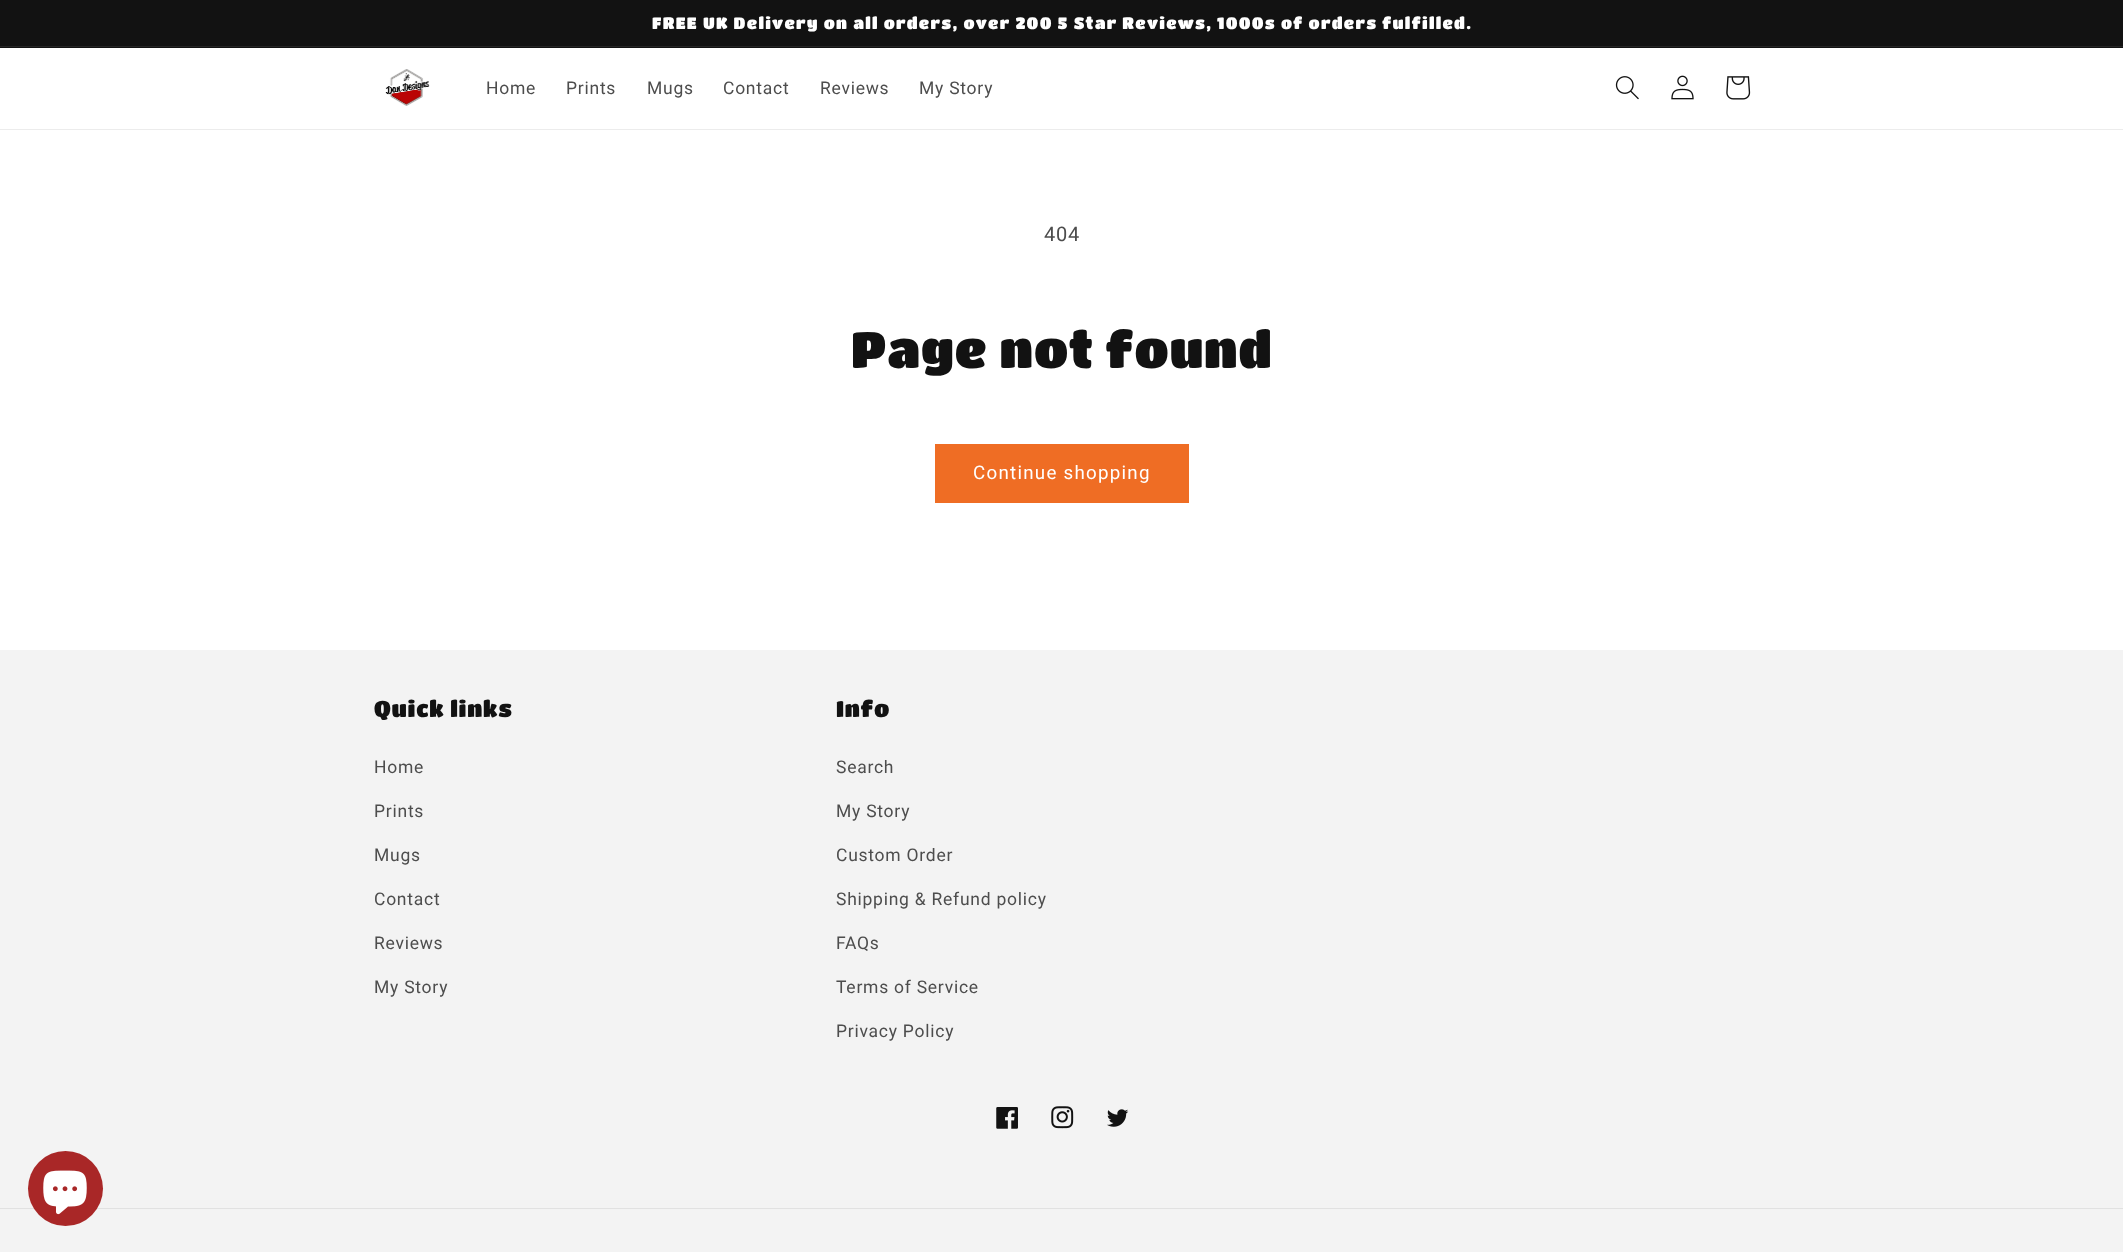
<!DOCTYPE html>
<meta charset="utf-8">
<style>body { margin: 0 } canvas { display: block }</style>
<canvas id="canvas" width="2123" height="1252"></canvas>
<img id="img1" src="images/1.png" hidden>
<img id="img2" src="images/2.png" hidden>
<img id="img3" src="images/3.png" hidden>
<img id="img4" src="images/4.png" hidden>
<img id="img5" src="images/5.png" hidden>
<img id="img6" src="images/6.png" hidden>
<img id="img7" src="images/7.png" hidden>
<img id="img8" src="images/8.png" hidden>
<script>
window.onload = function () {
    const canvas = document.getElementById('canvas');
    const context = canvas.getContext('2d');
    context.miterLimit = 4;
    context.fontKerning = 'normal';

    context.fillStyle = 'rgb(255, 255, 255)';
    context.fillRect(0, 0, 2123, 1252);
    context.fillStyle = 'rgb(18, 18, 18)';
    context.fillRect(0, 0, 2123, 48);
    context.fillStyle = 'rgb(37, 37, 37)';
    context.fillRect(0, 46, 2123, 1);
    context.fillStyle = 'rgb(236, 236, 236)';
    context.fillRect(0, 129, 2123, 1);
    context.drawImage(document.getElementById('img1'), 385, 69, 45, 37);
    context.drawImage(document.getElementById('img2'), 1615, 76, 24, 24);
    context.drawImage(document.getElementById('img3'), 1671, 75, 23, 25);
    context.drawImage(document.getElementById('img4'), 1726, 76, 25, 24);
    context.fillStyle = 'rgb(239, 109, 36)';
    context.fillRect(935, 444, 254, 59);
    context.fillStyle = 'rgb(243, 243, 243)';
    context.fillRect(0, 650, 2123, 602);
    context.drawImage(document.getElementById('img5'), 996, 1107, 22, 22);
    context.drawImage(document.getElementById('img6'), 1051, 1106, 23, 23);
    context.drawImage(document.getElementById('img7'), 1107, 1109, 22, 18);
    context.fillStyle = 'rgb(225, 225, 225)';
    context.fillRect(0, 1208, 2123, 1);
    context.fillStyle = 'rgb(169, 39, 39)';
    context.beginPath();
    context.arc(65.5, 1188.5, 37.5, 0, 2 * Math.PI);
    context.fill();
    context.drawImage(document.getElementById('img8'), 43, 1170, 44, 45);
    context.letterSpacing = '1.25px';
    context.font = '16.25px Titan One';
    context.fillStyle = 'rgb(255, 255, 255)';
    context.fillText('FREE UK Delivery on all orders, over 200 5 Star Reviews, 1000s of orders fulfilled.', 652, 29);
    context.letterSpacing = '0.75px';
    context.font = '17.5px Roboto';
    context.fillStyle = 'rgb(77, 77, 77)';
    context.fillText('Home', 486, 94);
    context.fillText('Prints', 566, 94);
    context.fillText('Mugs', 647, 94);
    context.fillText('Contact', 723, 94);
    context.fillText('Reviews', 820, 94);
    context.fillText('My Story', 919, 94);
    context.font = '20px Roboto';
    context.fillText('404', 1044, 241);
    context.font = '50px Titan One';
    context.fillStyle = 'rgb(18, 18, 18)';
    context.fillText('Page not found', 851, 368);
    context.letterSpacing = '1.25px';
    context.font = '18.75px Roboto';
    context.fillStyle = 'rgb(255, 255, 255)';
    context.fillText('Continue shopping', 973, 479);
    context.letterSpacing = '0.75px';
    context.font = '22.5px Titan One';
    context.fillStyle = 'rgb(18, 18, 18)';
    context.fillText('Quick links', 374, 717);
    context.font = '17.5px Roboto';
    context.fillStyle = 'rgb(77, 77, 77)';
    context.fillText('Home', 374, 773);
    context.fillText('Prints', 374, 817);
    context.fillText('Mugs', 374, 861);
    context.fillText('Contact', 374, 905);
    context.fillText('Reviews', 374, 949);
    context.fillText('My Story', 374, 993);
    context.font = '22.5px Titan One';
    context.fillStyle = 'rgb(18, 18, 18)';
    context.fillText('Info', 836, 717);
    context.font = '17.5px Roboto';
    context.fillStyle = 'rgb(77, 77, 77)';
    context.fillText('Search', 836, 773);
    context.fillText('My Story', 836, 817);
    context.fillText('Custom Order', 836, 861);
    context.fillText('Shipping & Refund policy', 836, 905);
    context.fillText('FAQs', 836, 949);
    context.fillText('Terms of Service', 836, 993);
    context.fillText('Privacy Policy', 836, 1037);
};
</script>
